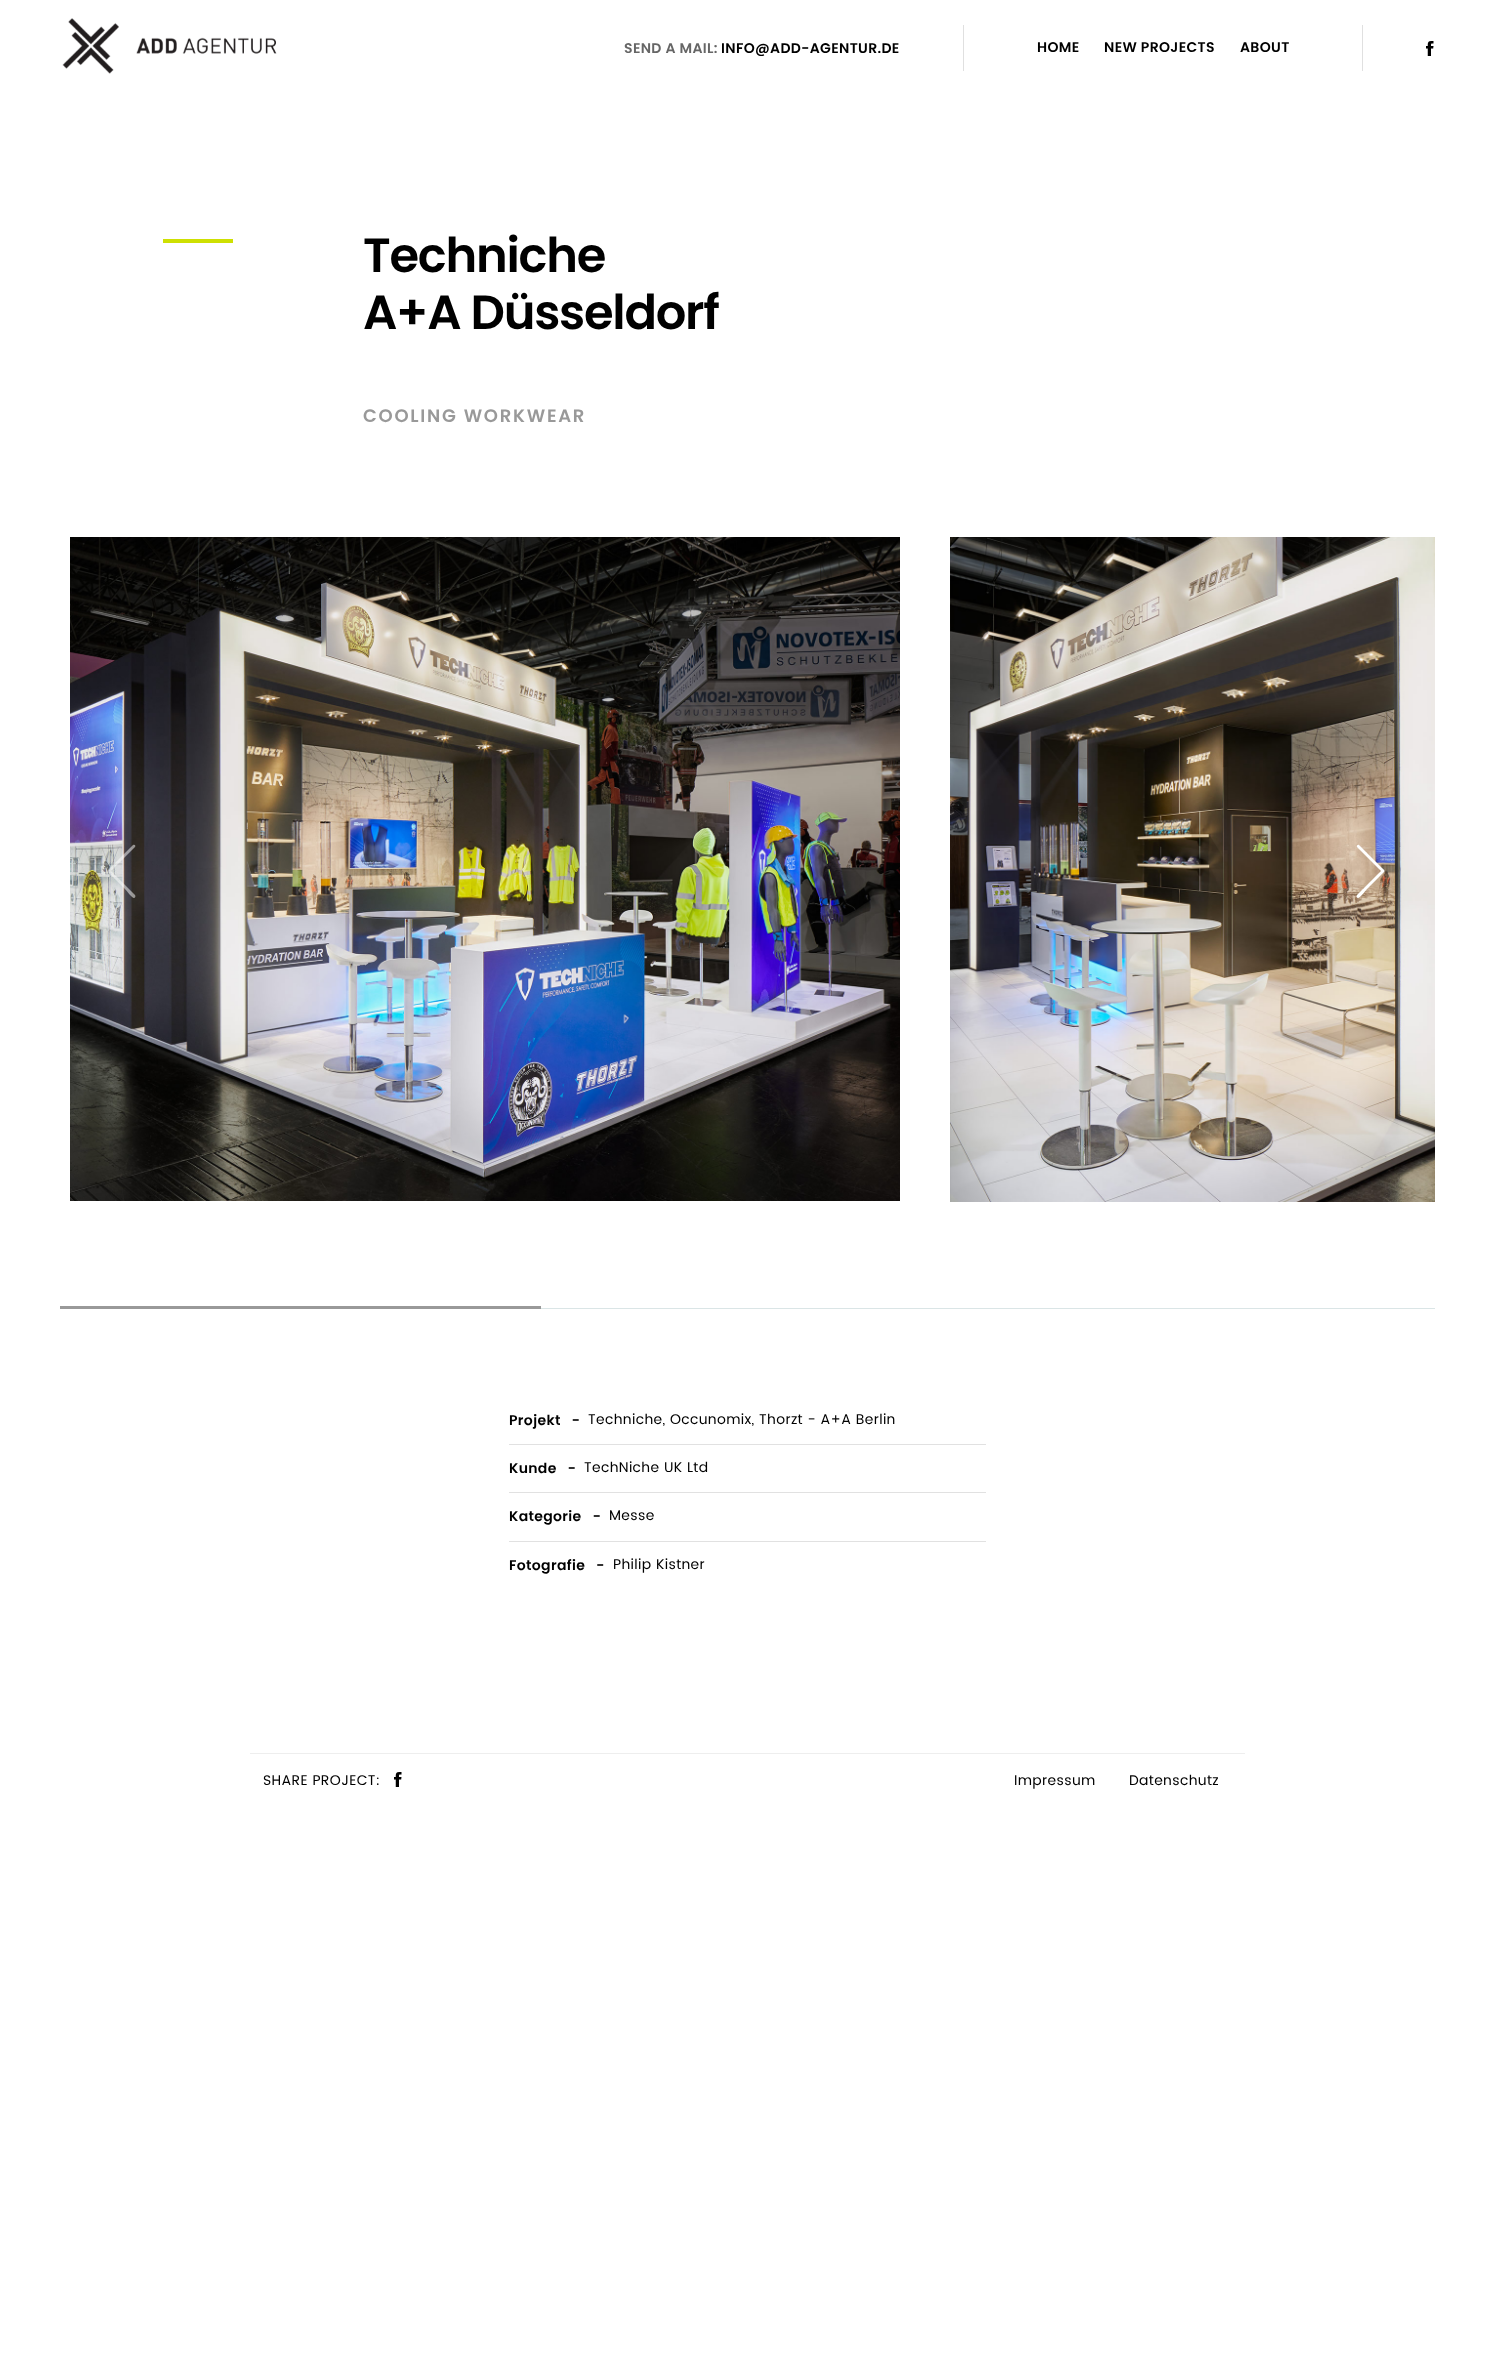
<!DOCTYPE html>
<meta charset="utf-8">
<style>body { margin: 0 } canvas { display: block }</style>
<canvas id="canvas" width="1495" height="2377"></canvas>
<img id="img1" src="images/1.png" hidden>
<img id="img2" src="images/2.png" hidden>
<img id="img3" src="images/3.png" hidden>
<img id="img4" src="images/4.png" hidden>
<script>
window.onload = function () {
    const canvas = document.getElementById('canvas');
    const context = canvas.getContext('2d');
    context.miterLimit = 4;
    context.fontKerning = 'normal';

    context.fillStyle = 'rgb(255, 255, 255)';
    context.fillRect(0, 0, 1495, 2377);
    context.drawImage(document.getElementById('img1'), 62, 18, 215, 56);
    context.fillStyle = 'rgb(224, 224, 224)';
    context.fillRect(963, 25, 1, 46);
    context.fillRect(1362, 25, 1, 46);
    context.drawImage(document.getElementById('img2'), 1426, 41, 8, 15);
    context.fillStyle = 'rgb(206, 224, 2)';
    context.fillRect(163, 239, 70, 4);
    context.drawImage(document.getElementById('img3'), 70, 537, 830, 664);
    context.drawImage(document.getElementById('img4'), 950, 537, 485, 665);
    context.fillStyle = 'rgba(255, 255, 255, 0.5)';
    context.beginPath();
    context.moveTo(134, 898);
    context.bezierCurveTo(135, 898, 136, 896, 135, 895);
    context.lineTo(111, 871);
    context.lineTo(135, 847);
    context.bezierCurveTo(136, 846, 135, 844, 133, 845);
    context.lineTo(112, 866);
    context.bezierCurveTo(106, 872, 106, 870, 112, 876);
    context.lineTo(125, 889);
    context.bezierCurveTo(126, 890, 132, 898, 134, 898);
    context.closePath();
    context.fill();
    context.fillStyle = 'rgb(255, 255, 255)';
    context.beginPath();
    context.moveTo(1358, 898);
    context.bezierCurveTo(1357, 898, 1356, 896, 1357, 895);
    context.lineTo(1381, 871);
    context.lineTo(1357, 847);
    context.bezierCurveTo(1356, 846, 1358, 844, 1359, 845);
    context.lineTo(1380, 866);
    context.bezierCurveTo(1386, 872, 1386, 870, 1380, 876);
    context.lineTo(1367, 889);
    context.bezierCurveTo(1366, 890, 1360, 898, 1358, 898);
    context.closePath();
    context.fill();
    context.fillStyle = 'rgb(218, 229, 230)';
    context.fillRect(541, 1308, 894, 1);
    context.fillStyle = 'rgb(153, 153, 153)';
    context.fillRect(60, 1306, 481, 3);
    context.fillStyle = 'rgb(225, 225, 225)';
    context.fillRect(509, 1444, 477, 1);
    context.fillRect(509, 1492, 477, 1);
    context.fillRect(509, 1541, 477, 1);
    context.fillStyle = 'rgb(238, 238, 238)';
    context.fillRect(250, 1753, 995, 1);
    context.drawImage(document.getElementById('img2'), 394, 1772, 8, 15);
    context.letterSpacing = '0.35px';
    context.font = '600 14px Poppins';
    context.fillStyle = 'rgb(102, 102, 102)';
    context.fillText('SEND A MAIL:', 624, 53);
    context.fillStyle = 'rgb(0, 0, 0)';
    context.fillText('INFO@ADD-AGENTUR.DE', 721, 53);
    context.fillText('HOME', 1037, 52);
    context.fillText('NEW PROJECTS', 1104, 52);
    context.fillText('ABOUT', 1240, 52);
    context.letterSpacing = '-1.25px';
    context.font = '600 48px Poppins';
    context.fillText('Techniche', 363, 272);
    context.fillText('A+A Düsseldorf', 363, 329);
    context.letterSpacing = '1.75px';
    context.font = '600 18px Poppins';
    context.fillStyle = 'rgb(153, 153, 153)';
    context.fillText('COOLING WORKWEAR', 363, 422);
    context.letterSpacing = '0.35px';
    context.font = '600 14px Poppins';
    context.fillStyle = 'rgb(0, 0, 0)';
    context.fillText('Projekt   -', 509, 1425);
    context.font = '14px Poppins';
    context.fillText('Techniche, Occunomix, Thorzt - A+A Berlin', 588, 1424);
    context.font = '600 14px Poppins';
    context.fillText('Kunde   -', 509, 1473);
    context.font = '14px Poppins';
    context.fillText('TechNiche UK Ltd', 584, 1472);
    context.font = '600 14px Poppins';
    context.fillText('Kategorie   -', 509, 1521);
    context.font = '14px Poppins';
    context.fillText('Messe', 609, 1520);
    context.font = '600 14px Poppins';
    context.fillText('Fotografie   -', 509, 1570);
    context.font = '14px Poppins';
    context.fillText('Philip Kistner', 613, 1569);
    context.fillText('SHARE PROJECT:', 263, 1785);
    context.fillText('Impressum', 1014, 1785);
    context.fillText('Datenschutz', 1129, 1785);
};
</script>
